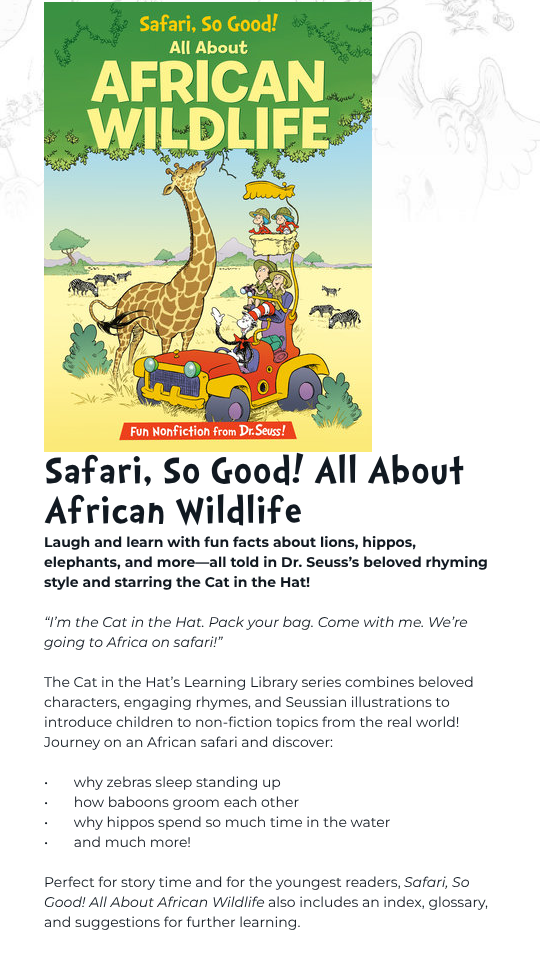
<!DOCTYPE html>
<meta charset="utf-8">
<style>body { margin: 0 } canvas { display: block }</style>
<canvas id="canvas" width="540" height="956"></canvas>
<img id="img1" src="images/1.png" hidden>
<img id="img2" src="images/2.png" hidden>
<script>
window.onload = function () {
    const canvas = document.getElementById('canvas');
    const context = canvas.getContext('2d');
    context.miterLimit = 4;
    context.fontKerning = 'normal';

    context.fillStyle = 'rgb(255, 255, 255)';
    context.fillRect(0, 0, 540, 956);
    context.drawImage(document.getElementById('img1'), 0, 0, 540, 222);
    context.drawImage(document.getElementById('img2'), 44, 2, 328, 450);
    context.font = 'bold 46px "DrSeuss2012"';
    context.fillStyle = 'rgb(17, 25, 33)';
    context.fillText('Safari, So Good! All About', 44, 483);
    context.fillText('African Wildlife', 44, 523);
    context.font = 'bold 14px Montserrat';
    context.fillText('Laugh and learn with fun facts about lions, hippos,', 44, 547);
    context.fillText('elephants, and more—all told in Dr. Seuss’s beloved rhyming', 44, 567);
    context.fillText('style and starring the Cat in the Hat!', 44, 587);
    context.font = 'italic 100 14px Montserrat';
    context.fillText('“I’m the Cat in the Hat. Pack your bag. Come with me. We’re', 44, 627);
    context.fillText('going to Africa on safari!”', 44, 647);
    context.font = '14px Montserrat';
    context.fillText('The Cat in the Hat’s Learning Library series combines beloved', 44, 687);
    context.fillText('characters, engaging rhymes, and Seussian illustrations to', 44, 707);
    context.fillText('introduce children to non-fiction topics from the real world!', 44, 727);
    context.fillText('Journey on an African safari and discover:', 44, 747);
    context.fillText('•       why zebras sleep standing up', 44, 787);
    context.fillText('•       how baboons groom each other', 44, 807);
    context.fillText('•       why hippos spend so much time in the water', 44, 827);
    context.fillText('•       and much more!', 44, 847);
    context.fillText('Perfect for story time and for the youngest readers,', 44, 887);
    context.font = 'italic 100 14px Montserrat';
    context.fillText('Safari, So', 404, 887);
    context.fillText('Good! All About African Wildlife', 44, 907);
    context.font = '14px Montserrat';
    context.fillText('also includes an index, glossary,', 268, 907);
    context.fillText('and suggestions for further learning.', 44, 927);
};
</script>
